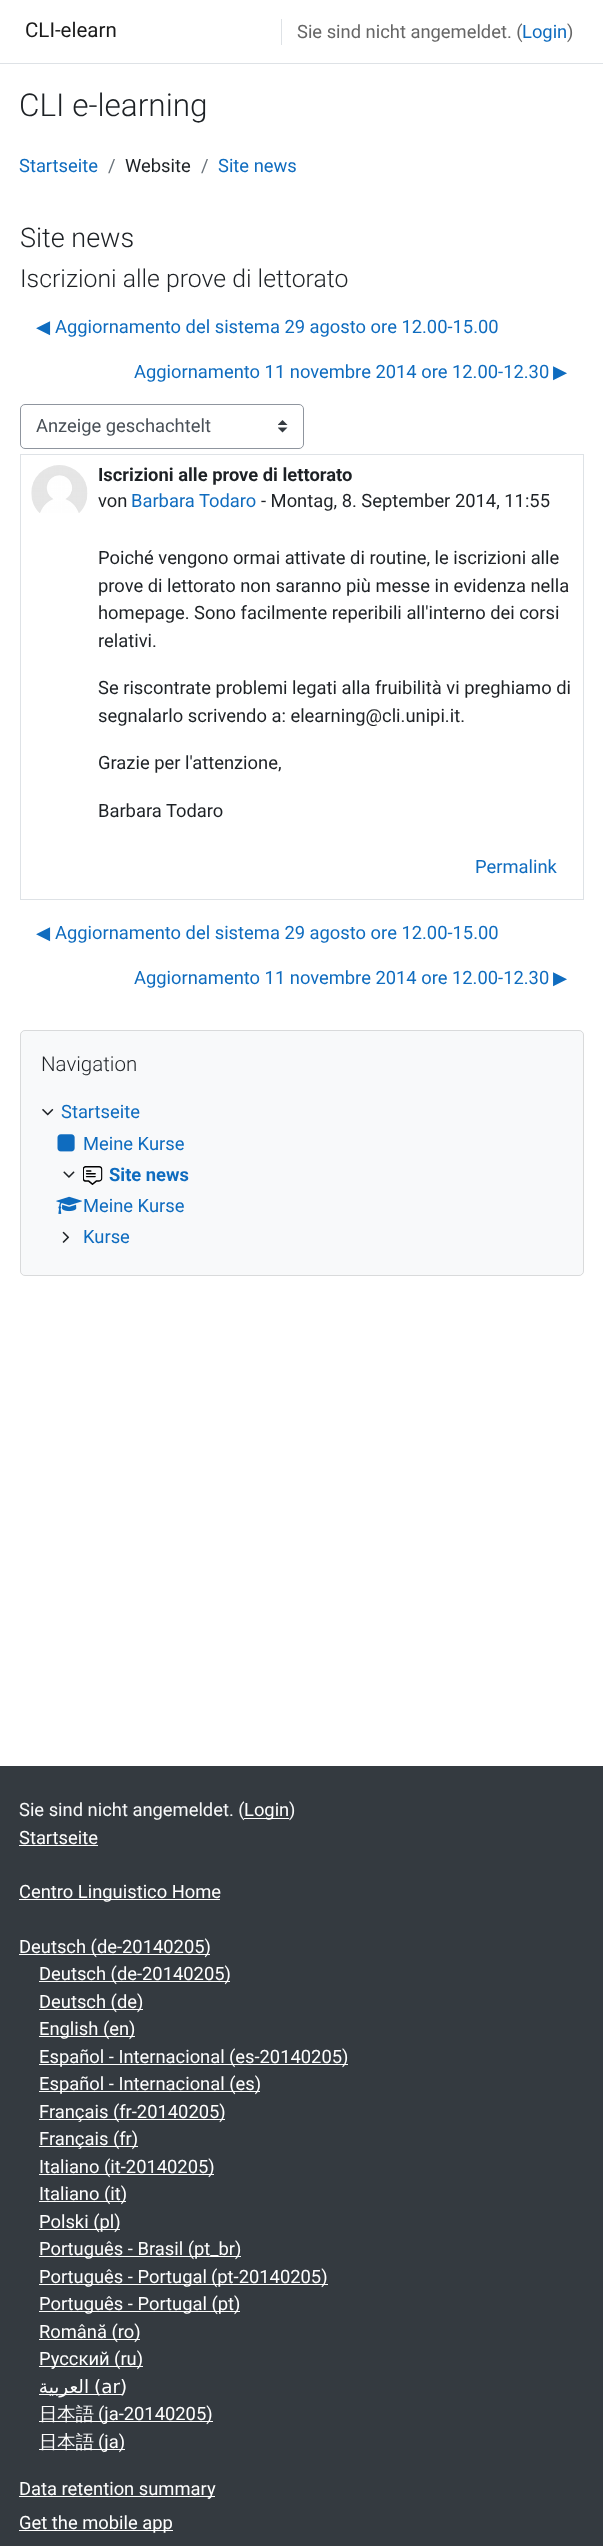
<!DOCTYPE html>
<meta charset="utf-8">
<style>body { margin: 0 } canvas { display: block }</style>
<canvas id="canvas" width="603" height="2546"></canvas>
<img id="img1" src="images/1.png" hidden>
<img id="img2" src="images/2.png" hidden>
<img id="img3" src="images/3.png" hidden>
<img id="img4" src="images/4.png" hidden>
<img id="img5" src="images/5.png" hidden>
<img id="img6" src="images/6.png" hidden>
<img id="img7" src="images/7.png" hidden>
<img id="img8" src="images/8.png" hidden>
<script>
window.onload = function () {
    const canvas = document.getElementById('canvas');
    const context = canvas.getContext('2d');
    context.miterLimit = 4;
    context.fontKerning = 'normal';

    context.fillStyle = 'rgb(255, 255, 255)';
    context.fillRect(0, 0, 603, 2546);
    context.fillStyle = 'rgb(222, 226, 230)';
    context.fillRect(0, 63, 603, 1);
    context.fillRect(281, 19, 1, 26);
    context.drawImage(document.getElementById('img1'), 278, 420, 10, 13);
    context.beginPath();
    context.roundRect(20.5, 404.5, 283, 44, 4.5);
    context.strokeStyle = 'rgb(143, 149, 158)';
    context.stroke();
    context.strokeStyle = 'rgb(222, 226, 230)';
    context.strokeRect(20.5, 454.5, 563, 445);
    context.drawImage(document.getElementById('img2'), 31, 465, 57, 48);
    context.fillStyle = 'rgb(248, 249, 250)';
    context.beginPath();
    context.roundRect(20, 1030, 564, 246, 5);
    context.fill();
    context.beginPath();
    context.roundRect(20.5, 1030.5, 563, 245, 4.5);
    context.strokeStyle = 'rgba(0, 0, 0, 0.12)';
    context.stroke();
    context.drawImage(document.getElementById('img3'), 42, 1108, 12, 8);
    context.drawImage(document.getElementById('img4'), 57, 1134, 18, 18);
    context.drawImage(document.getElementById('img5'), 63, 1171, 12, 7);
    context.drawImage(document.getElementById('img6'), 83, 1166, 20, 19);
    context.drawImage(document.getElementById('img7'), 56, 1196, 26, 18);
    context.drawImage(document.getElementById('img8'), 62, 1231, 8, 12);
    context.fillStyle = 'rgb(52, 58, 64)';
    context.fillRect(0, 1766, 603, 780);
    context.fillStyle = 'rgb(255, 255, 255)';
    context.fillRect(244, 1818, 45, 1);
    context.fillRect(19, 1845, 79, 1);
    context.fillRect(19, 1899, 201, 1);
    context.fillRect(19, 1954, 191, 1);
    context.fillRect(39, 1981, 191, 1);
    context.fillRect(39, 2009, 104, 1);
    context.fillRect(39, 2036, 96, 1);
    context.fillRect(39, 2064, 309, 1);
    context.fillRect(39, 2091, 221, 1);
    context.fillRect(39, 2119, 186, 1);
    context.fillRect(39, 2146, 99, 1);
    context.fillRect(39, 2174, 175, 1);
    context.fillRect(39, 2201, 87, 1);
    context.fillRect(39, 2229, 81, 1);
    context.fillRect(39, 2256, 202, 1);
    context.fillRect(39, 2284, 289, 1);
    context.fillRect(39, 2311, 201, 1);
    context.fillRect(39, 2339, 101, 1);
    context.fillRect(39, 2366, 104, 1);
    context.fillRect(39, 2394, 84, 1);
    context.fillRect(39, 2421, 174, 1);
    context.fillRect(39, 2449, 86, 1);
    context.fillRect(19, 2496, 196, 1);
    context.fillRect(19, 2530, 154, 1);
    context.font = '20.5px Roboto';
    context.fillStyle = 'rgb(26, 26, 26)';
    context.fillText('CLI-elearn', 25, 37);
    context.font = '18.35px Roboto';
    context.fillStyle = 'rgb(102, 102, 102)';
    context.fillText('Sie sind nicht angemeldet. (', 297, 38);
    context.fillStyle = 'rgb(15, 108, 191)';
    context.fillText('Login', 522, 38);
    context.fillStyle = 'rgb(102, 102, 102)';
    context.fillText(')', 567, 38);
    context.font = '300 31.5px Roboto';
    context.fillStyle = 'rgb(29, 33, 37)';
    context.fillText('CLI e-learning', 19, 116);
    context.font = '18.35px Roboto';
    context.fillStyle = 'rgb(15, 108, 191)';
    context.fillText('Startseite', 19, 172);
    context.fillStyle = 'rgb(106, 115, 123)';
    context.fillText('/', 108, 172);
    context.fillStyle = 'rgb(29, 33, 37)';
    context.fillText('Website', 125, 172);
    context.fillStyle = 'rgb(106, 115, 123)';
    context.fillText('/', 201, 172);
    context.fillStyle = 'rgb(15, 108, 191)';
    context.fillText('Site news', 218, 172);
    context.font = '300 27px Roboto';
    context.fillStyle = 'rgb(29, 33, 37)';
    context.fillText('Site news', 20, 247);
    context.font = '300 24.8px Roboto';
    context.fillText('Iscrizioni alle prove di lettorato', 20, 287);
    context.font = '18.35px DejaVu Sans';
    context.fillStyle = 'rgb(15, 108, 191)';
    context.fillText('◀︎', 36, 333);
    context.font = '18.35px Roboto';
    context.fillText('Aggiornamento del sistema 29 agosto ore 12.00-15.00', 55, 333);
    context.fillText('Aggiornamento 11 novembre 2014 ore 12.00-12.30', 134, 378);
    context.font = '18.35px DejaVu Sans';
    context.fillText('▶︎', 553, 378);
    context.font = '18.35px Roboto';
    context.fillStyle = 'rgb(73, 80, 87)';
    context.fillText('Anzeige geschachtelt', 36, 432);
    context.font = 'bold 18.35px Roboto';
    context.fillStyle = 'rgb(29, 33, 37)';
    context.fillText('Iscrizioni alle prove di lettorato', 98, 481);
    context.font = '18.35px Roboto';
    context.fillText('von', 98, 507);
    context.fillStyle = 'rgb(15, 108, 191)';
    context.fillText('Barbara Todaro', 131, 507);
    context.fillStyle = 'rgb(29, 33, 37)';
    context.fillText('- Montag, 8. September 2014, 11:55', 261, 507);
    context.fillText('Poiché vengono ormai attivate di routine, le iscrizioni alle', 98, 564);
    context.fillText('prove di lettorato non saranno più messe in evidenza nella', 98, 592);
    context.fillText('homepage. Sono facilmente reperibili all\'interno dei corsi', 98, 619);
    context.fillText('relativi.', 98, 647);
    context.fillText('Se riscontrate problemi legati alla fruibilità vi preghiamo di', 98, 694);
    context.fillText('segnalarlo scrivendo a: elearning@cli.unipi.it.', 98, 722);
    context.fillText('Grazie per l\'attenzione,', 98, 769);
    context.fillText('Barbara Todaro', 98, 817);
    context.fillStyle = 'rgb(15, 108, 191)';
    context.fillText('Permalink', 475, 873);
    context.font = '18.35px DejaVu Sans';
    context.fillText('◀︎', 36, 939);
    context.font = '18.35px Roboto';
    context.fillText('Aggiornamento del sistema 29 agosto ore 12.00-15.00', 55, 939);
    context.fillText('Aggiornamento 11 novembre 2014 ore 12.00-12.30', 134, 984);
    context.font = '18.35px DejaVu Sans';
    context.fillText('▶︎', 553, 984);
    context.font = '300 20.5px Roboto';
    context.fillStyle = 'rgb(29, 33, 37)';
    context.fillText('Navigation', 41, 1071);
    context.font = '18.35px Roboto';
    context.fillStyle = 'rgb(15, 108, 191)';
    context.fillText('Startseite', 61, 1118);
    context.fillText('Meine Kurse', 83, 1150);
    context.font = 'bold 18.35px Roboto';
    context.fillText('Site news', 109, 1181);
    context.font = '18.35px Roboto';
    context.fillText('Meine Kurse', 83, 1212);
    context.fillText('Kurse', 83, 1243);
    context.fillStyle = 'rgb(248, 249, 250)';
    context.fillText('Sie sind nicht angemeldet. (', 19, 1816);
    context.fillStyle = 'rgb(255, 255, 255)';
    context.fillText('Login', 244, 1816);
    context.fillStyle = 'rgb(248, 249, 250)';
    context.fillText(')', 289, 1816);
    context.fillStyle = 'rgb(255, 255, 255)';
    context.fillText('Startseite', 19, 1844);
    context.fillText('Centro Linguistico Home', 19, 1898);
    context.fillText('Deutsch (de-20140205)', 19, 1953);
    context.fillText('Deutsch (de-20140205)', 39, 1980);
    context.fillText('Deutsch (de)', 39, 2008);
    context.fillText('English (en)', 39, 2035);
    context.fillText('Español - Internacional', 39, 2063);
    context.fillText('(es-20140205)', 229, 2063);
    context.fillText('Español - Internacional (es)', 39, 2090);
    context.fillText('Français (fr-20140205)', 39, 2118);
    context.fillText('Français (fr)', 39, 2145);
    context.fillText('Italiano (it-20140205)', 39, 2173);
    context.fillText('Italiano (it)', 39, 2200);
    context.fillText('Polski (pl)', 39, 2228);
    context.fillText('Português - Brasil (pt_br)', 39, 2255);
    context.fillText('Português - Portugal', 39, 2283);
    context.fillText('(pt-20140205)', 211, 2283);
    context.fillText('Português - Portugal (pt)', 39, 2310);
    context.fillText('Română (ro)', 39, 2338);
    context.fillText('Русский (ru)', 39, 2365);
    context.direction = 'rtl';
    context.font = '18.35px DejaVu Sans';
    context.fillText('العربية', 89, 2393);
    context.direction = 'ltr';
    context.fillText('(ar)', 94, 2393);
    context.font = '500 18.35px WenQuanYi Zen Hei';
    context.fillText('日本語', 39, 2420);
    context.font = '18.35px Roboto';
    context.fillText('(ja-20140205)', 98, 2420);
    context.font = '500 18.35px WenQuanYi Zen Hei';
    context.fillText('日本語', 39, 2448);
    context.font = '18.35px Roboto';
    context.fillText('(ja)', 98, 2448);
    context.fillText('Data retention summary', 19, 2495);
    context.fillText('Get the mobile app', 19, 2529);
};
</script>
